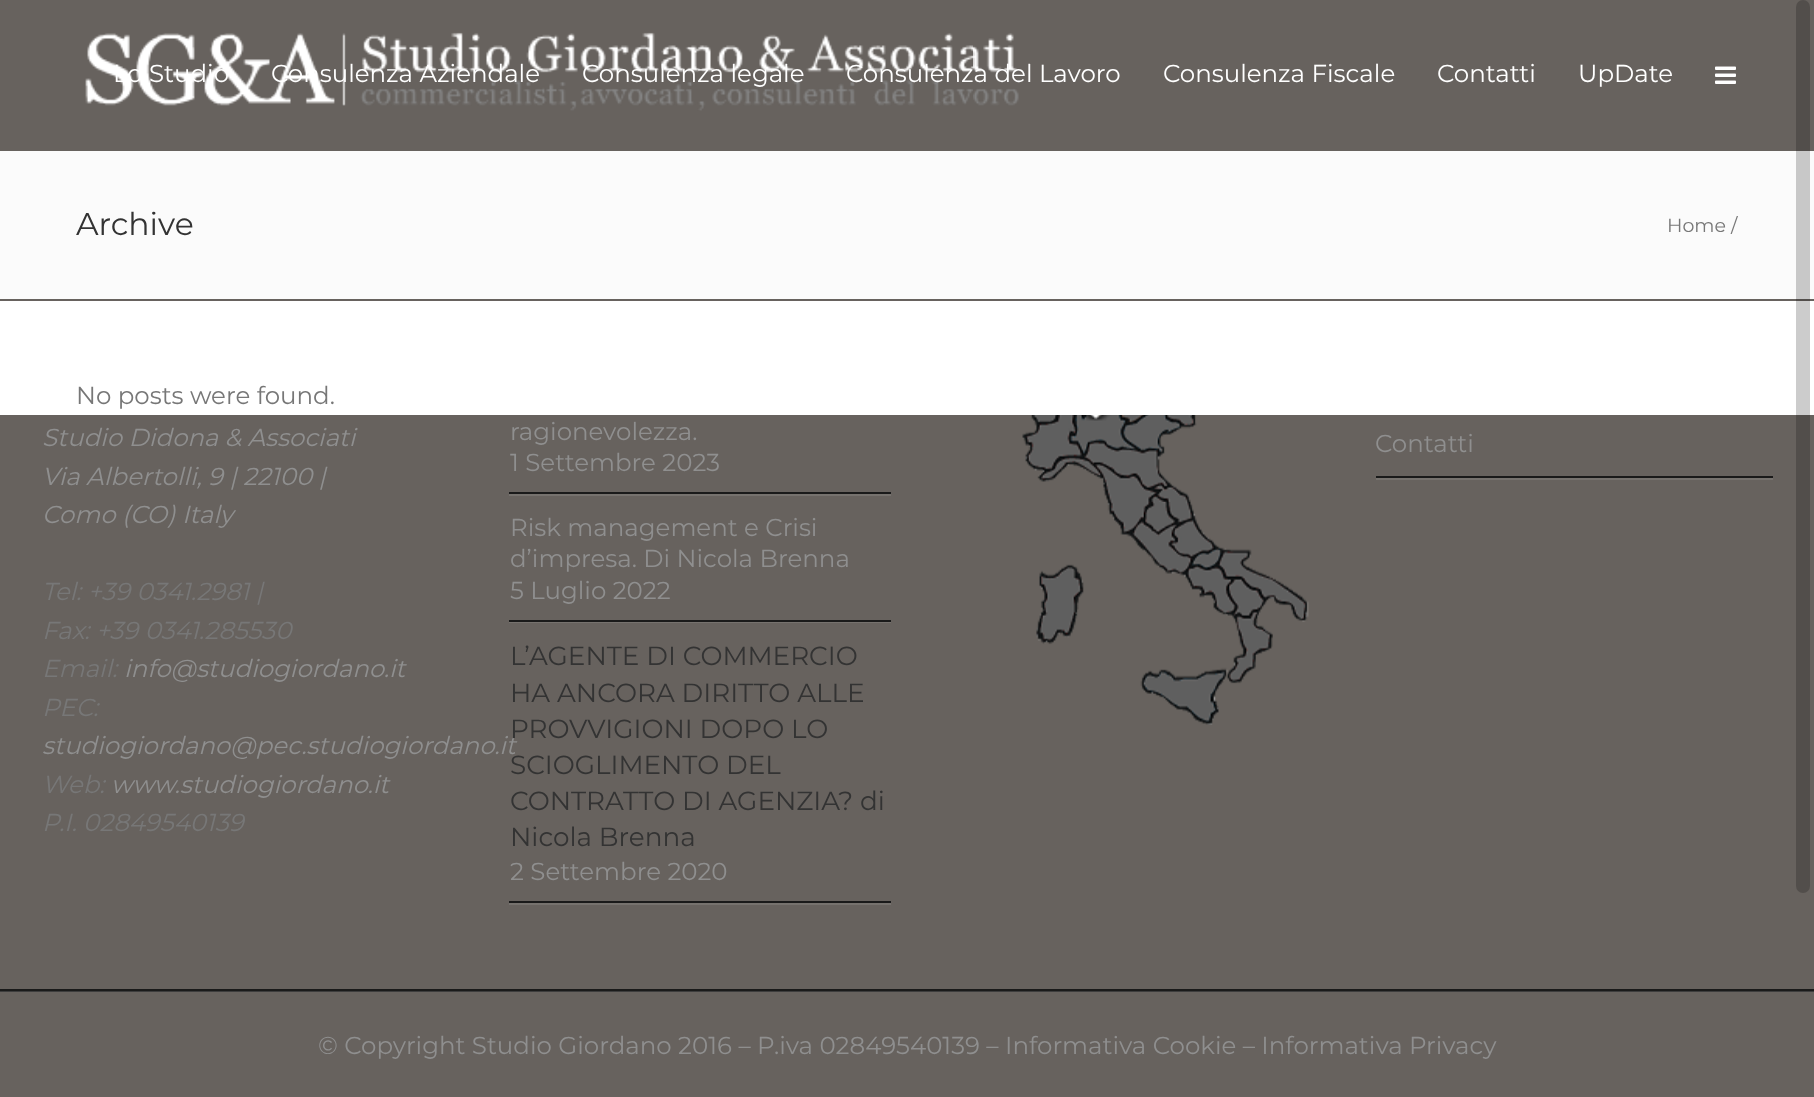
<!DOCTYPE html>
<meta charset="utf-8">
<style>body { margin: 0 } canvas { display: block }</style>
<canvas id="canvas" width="1814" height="1097"></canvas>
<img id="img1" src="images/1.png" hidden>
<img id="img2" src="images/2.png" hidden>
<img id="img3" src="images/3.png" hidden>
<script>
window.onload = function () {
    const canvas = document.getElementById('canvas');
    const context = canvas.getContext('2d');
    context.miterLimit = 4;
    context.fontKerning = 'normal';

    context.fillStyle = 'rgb(103, 98, 94)';
    context.fillRect(0, 0, 1814, 1097);
    context.drawImage(document.getElementById('img1'), 85, 32, 934, 79);
    context.drawImage(document.getElementById('img2'), 1715, 66, 21, 18);
    context.fillStyle = 'rgb(255, 255, 255)';
    context.fillRect(0, 301, 1814, 114);
    context.fillStyle = 'rgb(251, 251, 251)';
    context.fillRect(0, 151, 1814, 148);
    context.fillStyle = 'rgb(61, 61, 61)';
    context.fillRect(0, 991, 1814, 1);
    context.fillStyle = 'rgb(26, 26, 26)';
    context.fillRect(0, 989, 1814, 2);
    context.fillStyle = 'rgb(118, 114, 110)';
    context.fillRect(509, 494, 382, 2);
    context.fillStyle = 'rgb(26, 26, 26)';
    context.fillRect(509, 492, 382, 2);
    context.fillStyle = 'rgb(118, 114, 110)';
    context.fillRect(509, 622, 382, 1);
    context.fillStyle = 'rgb(26, 26, 26)';
    context.fillRect(509, 620, 382, 2);
    context.fillStyle = 'rgb(118, 114, 110)';
    context.fillRect(509, 903, 382, 2);
    context.fillStyle = 'rgb(26, 26, 26)';
    context.fillRect(509, 901, 382, 2);
    context.drawImage(document.getElementById('img3'), 1022, 415, 287, 310);
    context.fillStyle = 'rgb(118, 114, 110)';
    context.fillRect(1376, 478, 397, 2);
    context.fillStyle = 'rgb(26, 26, 26)';
    context.fillRect(1376, 476, 397, 2);
    context.fillStyle = 'rgba(0, 0, 0, 0.2)';
    context.beginPath();
    context.roundRect(1796, 0, 14, 893, 7);
    context.fill();
    context.font = '24.5px Montserrat';
    context.fillStyle = 'rgb(255, 255, 255)';
    context.fillText('Lo Studio', 113, 82);
    context.fillText('Consulenza Aziendale', 271, 82);
    context.fillText('Consulenza legale', 582, 82);
    context.fillText('Consulenza del Lavoro', 846, 82);
    context.fillText('Consulenza Fiscale', 1163, 82);
    context.fillText('Contatti', 1437, 82);
    context.fillText('UpDate', 1578, 82);
    context.font = '31.5px Montserrat';
    context.fillStyle = 'rgb(51, 51, 51)';
    context.fillText('Archive', 76, 235);
    context.font = '19px Montserrat';
    context.fillStyle = 'rgb(119, 119, 119)';
    context.fillText('Home /', 1667, 232);
    context.font = '24.5px Montserrat';
    context.fillText('No posts were found.', 76, 404);
    context.font = 'italic 24.5px Montserrat';
    context.fillStyle = 'rgb(143, 143, 143)';
    context.fillText('Studio Didona & Associati', 42, 446);
    context.fillText('Via Albertolli, 9 | 22100 |', 42, 485);
    context.fillText('Como (CO) Italy', 42, 523);
    context.fillStyle = 'rgb(119, 119, 119)';
    context.fillText('Tel: +39 0341.2981 |', 42, 600);
    context.fillText('Fax: +39 0341.285530', 42, 639);
    context.fillText('Email:', 42, 677);
    context.fillStyle = 'rgb(143, 143, 143)';
    context.fillText('info@studiogiordano.it', 124, 677);
    context.fillStyle = 'rgb(119, 119, 119)';
    context.fillText('PEC:', 42, 716);
    context.fillStyle = 'rgb(143, 143, 143)';
    context.fillText('studiogiordano@pec.studiogiordano.it', 42, 754);
    context.fillStyle = 'rgb(119, 119, 119)';
    context.fillText('Web:', 42, 793);
    context.fillStyle = 'rgb(143, 143, 143)';
    context.fillText('www.studiogiordano.it', 111, 793);
    context.fillStyle = 'rgb(119, 119, 119)';
    context.fillText('P.I. 02849540139', 42, 831);
    context.font = '24.5px Montserrat';
    context.fillStyle = 'rgb(143, 143, 143)';
    context.fillText('ragionevolezza.', 510, 440);
    context.fillText('1 Settembre 2023', 510, 471);
    context.fillText('Risk management e Crisi', 510, 536);
    context.fillText('d’impresa. Di Nicola Brenna', 510, 567);
    context.fillText('5 Luglio 2022', 510, 599);
    context.font = '26.25px Montserrat';
    context.fillStyle = 'rgb(51, 51, 51)';
    context.fillText('L’AGENTE DI COMMERCIO', 510, 665);
    context.fillText('HA ANCORA DIRITTO ALLE', 510, 702);
    context.fillText('PROVVIGIONI DOPO LO', 510, 738);
    context.fillText('SCIOGLIMENTO DEL', 510, 774);
    context.fillText('CONTRATTO DI AGENZIA? di', 510, 810);
    context.fillText('Nicola Brenna', 510, 846);
    context.font = '24.5px Montserrat';
    context.fillStyle = 'rgb(143, 143, 143)';
    context.fillText('2 Settembre 2020', 510, 880);
    context.fillText('Contatti', 1375, 452);
    context.fillText('© Copyright Studio Giordano 2016 – P.iva 02849540139 – Informativa Cookie – Informativa Privacy', 318, 1054);
};
</script>
